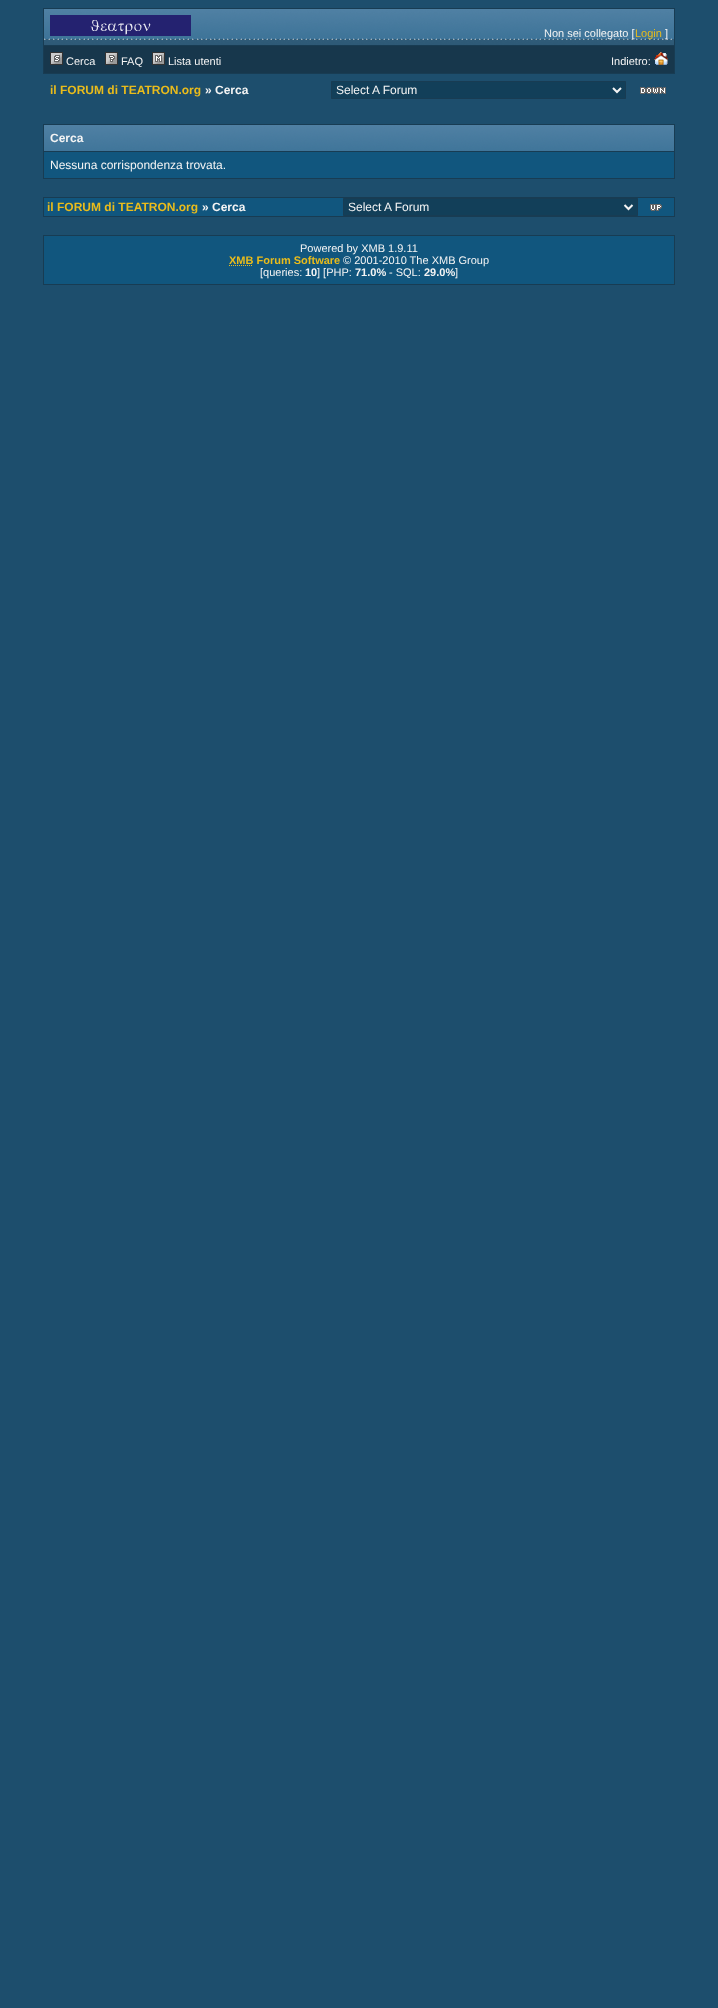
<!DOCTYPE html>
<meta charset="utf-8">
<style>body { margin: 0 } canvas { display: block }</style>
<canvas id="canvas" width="718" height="2008"></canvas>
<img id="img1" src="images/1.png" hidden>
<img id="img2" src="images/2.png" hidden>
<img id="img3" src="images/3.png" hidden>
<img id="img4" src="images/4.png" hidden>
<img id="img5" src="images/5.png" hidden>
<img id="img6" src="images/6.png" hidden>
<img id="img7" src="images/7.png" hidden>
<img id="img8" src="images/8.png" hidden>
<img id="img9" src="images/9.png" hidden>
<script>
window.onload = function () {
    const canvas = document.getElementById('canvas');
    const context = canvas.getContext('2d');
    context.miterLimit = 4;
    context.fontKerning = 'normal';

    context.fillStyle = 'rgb(29, 78, 109)';
    context.fillRect(0, 0, 718, 2008);
    context.fillStyle = 'rgb(24, 60, 83)';
    context.fillRect(43, 8, 632, 66);
    context.drawImage(document.getElementById('img1'), 44, 9, 630, 36);
    context.drawImage(document.getElementById('img2'), 50, 15, 141, 21);
    context.fillStyle = 'rgb(23, 55, 76)';
    context.fillRect(44, 46, 630, 27);
    context.drawImage(document.getElementById('img3'), 50, 52, 13, 13);
    context.drawImage(document.getElementById('img4'), 105, 52, 13, 13);
    context.drawImage(document.getElementById('img5'), 152, 52, 13, 13);
    context.drawImage(document.getElementById('img6'), 654, 52, 14, 13);
    context.fillStyle = 'rgb(18, 63, 89)';
    context.beginPath();
    context.rect(331.5, 81.5, 294, 17);
    context.fill();
    context.strokeStyle = 'rgb(24, 60, 83)';
    context.stroke();
    context.beginPath();
    context.moveTo(613, 88);
    context.lineTo(617, 92);
    context.lineTo(621, 88);
    context.strokeStyle = 'rgb(244, 244, 244)';
    context.lineWidth = 2;
    context.stroke();
    context.drawImage(document.getElementById('img7'), 640, 87, 26, 7);
    context.fillStyle = 'rgb(24, 60, 83)';
    context.fillRect(43, 124, 632, 55);
    context.drawImage(document.getElementById('img8'), 44, 125, 630, 26);
    context.fillStyle = 'rgb(17, 86, 126)';
    context.fillRect(44, 152, 630, 26);
    context.fillStyle = 'rgb(24, 60, 83)';
    context.fillRect(43, 197, 632, 20);
    context.fillStyle = 'rgb(17, 86, 126)';
    context.fillRect(44, 198, 630, 18);
    context.fillStyle = 'rgb(18, 63, 89)';
    context.beginPath();
    context.rect(343.5, 198.5, 294, 17);
    context.fill();
    context.strokeStyle = 'rgb(24, 60, 83)';
    context.lineWidth = 1;
    context.stroke();
    context.beginPath();
    context.moveTo(624.5, 205);
    context.lineTo(628.5, 209);
    context.lineTo(632.5, 205);
    context.strokeStyle = 'rgb(244, 244, 244)';
    context.lineWidth = 2;
    context.stroke();
    context.drawImage(document.getElementById('img9'), 650, 204, 12, 7);
    context.fillStyle = 'rgb(24, 60, 83)';
    context.fillRect(43, 235, 632, 50);
    context.fillStyle = 'rgb(17, 86, 126)';
    context.fillRect(44, 236, 630, 48);
    context.beginPath();
    context.moveTo(229, 265.5);
    context.lineTo(253, 265.5);
    context.strokeStyle = 'rgb(234, 188, 27)';
    context.lineWidth = 1;
    context.setLineDash([1, 1]);
    context.stroke();
    context.font = '11px Liberation Sans';
    context.fillStyle = 'rgb(244, 244, 244)';
    context.fillText('Non sei collegato [', 544, 37);
    context.fillStyle = 'rgb(234, 188, 27)';
    context.fillText('Login', 635, 37);
    context.fillStyle = 'rgb(244, 244, 244)';
    context.fillText(']', 665, 37);
    context.fillText('Cerca', 66, 65);
    context.fillText('FAQ', 121, 65);
    context.fillText('Lista utenti', 168, 65);
    context.fillText('Indietro:', 611, 65);
    context.font = 'bold 12px Liberation Sans';
    context.fillStyle = 'rgb(234, 188, 27)';
    context.fillText('il FORUM di TEATRON.org', 50, 94);
    context.fillStyle = 'rgb(244, 244, 244)';
    context.fillText('» Cerca', 205, 94);
    context.font = '12px Liberation Sans';
    context.fillText('Select A Forum', 336, 94);
    context.font = 'bold 12px Liberation Sans';
    context.fillText('Cerca', 50, 142);
    context.font = '12px Liberation Sans';
    context.fillText('Nessuna corrispondenza trovata.', 50, 169);
    context.font = 'bold 12px Liberation Sans';
    context.fillStyle = 'rgb(234, 188, 27)';
    context.fillText('il FORUM di TEATRON.org', 47, 211);
    context.fillStyle = 'rgb(244, 244, 244)';
    context.fillText('» Cerca', 202, 211);
    context.font = '12px Liberation Sans';
    context.fillText('Select A Forum', 348, 211);
    context.font = '11px Liberation Sans';
    context.fillText('Powered by XMB 1.9.11', 300, 252);
    context.font = 'bold 11px Liberation Sans';
    context.fillStyle = 'rgb(234, 188, 27)';
    context.fillText('XMB Forum Software', 229, 264);
    context.font = '11px Liberation Sans';
    context.fillStyle = 'rgb(244, 244, 244)';
    context.fillText('© 2001-2010 The XMB Group', 343, 264);
    context.fillText('[queries:', 260, 276);
    context.font = 'bold 11px Liberation Sans';
    context.fillText('10', 305, 276);
    context.font = '11px Liberation Sans';
    context.fillText('] [PHP:', 317, 276);
    context.font = 'bold 11px Liberation Sans';
    context.fillText('71.0%', 355, 276);
    context.font = '11px Liberation Sans';
    context.fillText('- SQL:', 389, 276);
    context.font = 'bold 11px Liberation Sans';
    context.fillText('29.0%', 424, 276);
    context.font = '11px Liberation Sans';
    context.fillText(']', 455, 276);
};
</script>
